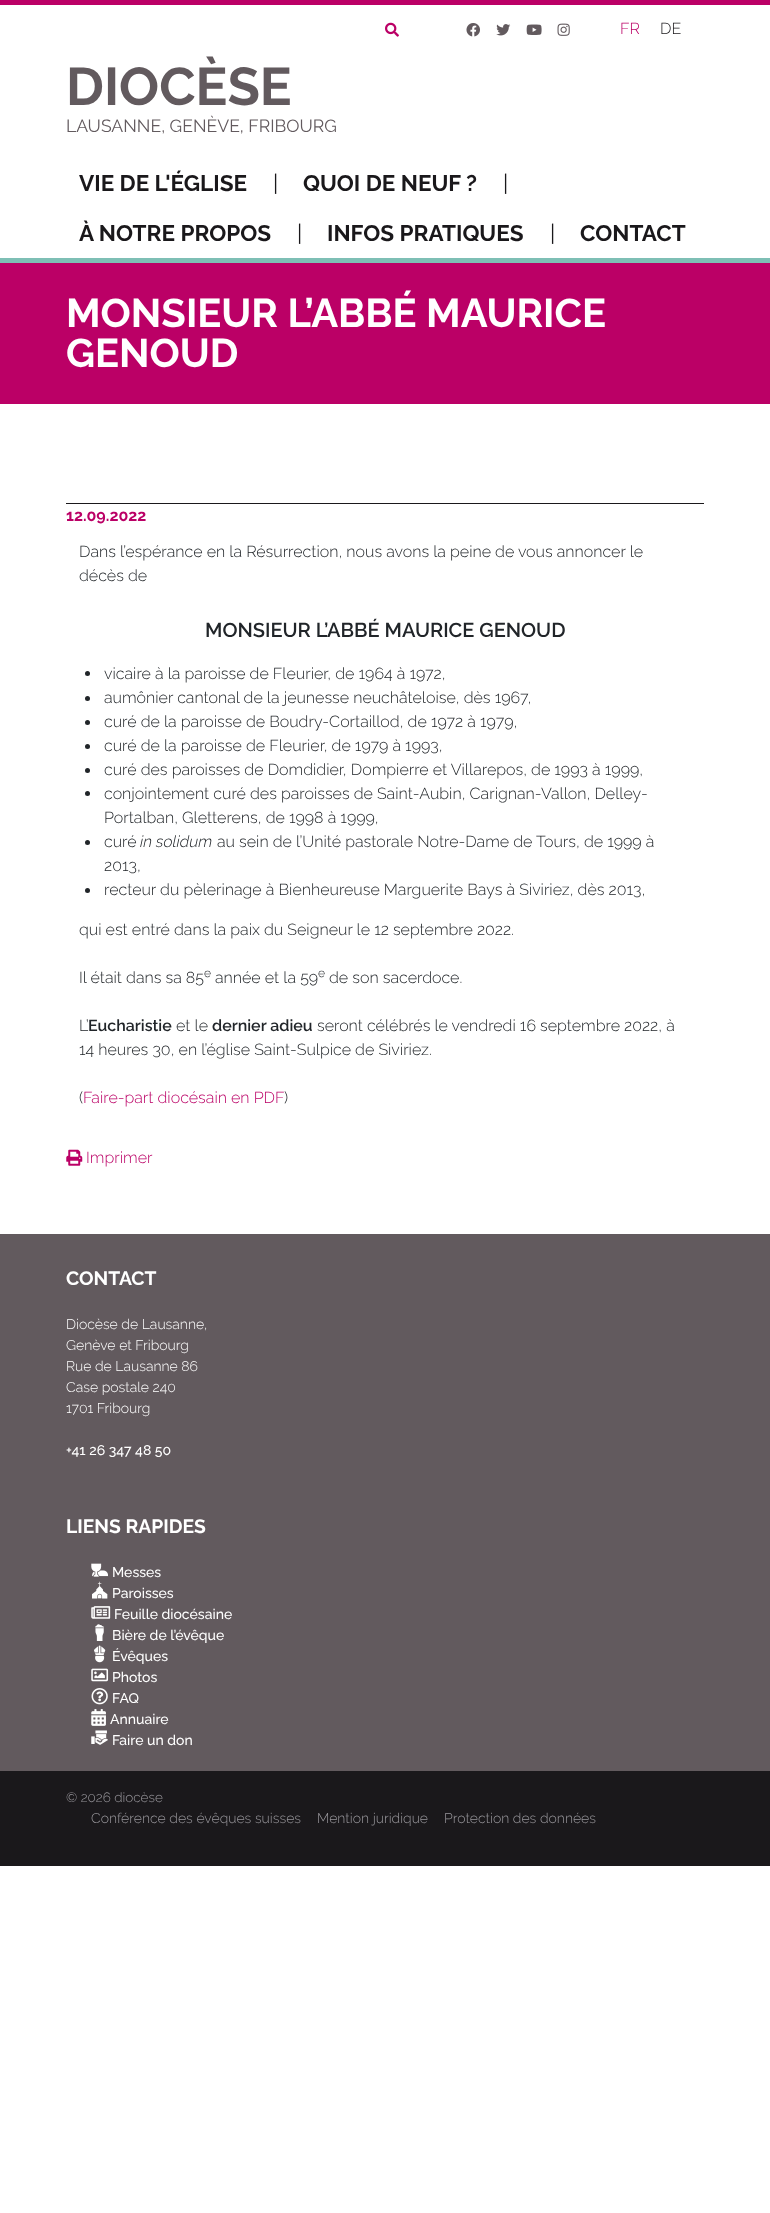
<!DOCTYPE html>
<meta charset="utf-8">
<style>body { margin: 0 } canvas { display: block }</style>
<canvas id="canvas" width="770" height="2213"></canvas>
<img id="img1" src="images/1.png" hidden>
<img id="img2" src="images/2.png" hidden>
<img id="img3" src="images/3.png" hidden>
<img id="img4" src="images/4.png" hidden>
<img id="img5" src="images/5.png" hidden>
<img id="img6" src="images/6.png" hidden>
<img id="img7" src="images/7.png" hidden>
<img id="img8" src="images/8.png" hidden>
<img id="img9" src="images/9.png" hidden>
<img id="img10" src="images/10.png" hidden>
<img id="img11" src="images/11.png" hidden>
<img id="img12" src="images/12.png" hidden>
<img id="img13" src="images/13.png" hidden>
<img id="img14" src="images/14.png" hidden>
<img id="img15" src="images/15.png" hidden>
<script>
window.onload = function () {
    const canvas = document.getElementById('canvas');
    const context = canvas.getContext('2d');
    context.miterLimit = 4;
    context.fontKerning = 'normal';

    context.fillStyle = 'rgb(255, 255, 255)';
    context.fillRect(0, 0, 770, 2213);
    context.fillStyle = 'rgb(187, 0, 102)';
    context.fillRect(0, 0, 770, 5);
    context.fillStyle = 'rgb(126, 191, 181)';
    context.fillRect(0, 258, 770, 5);
    context.drawImage(document.getElementById('img1'), 385, 22, 14, 15);
    context.drawImage(document.getElementById('img2'), 466, 23, 14, 14);
    context.drawImage(document.getElementById('img3'), 496, 24, 15, 12);
    context.drawImage(document.getElementById('img4'), 526, 24, 16, 11);
    context.drawImage(document.getElementById('img5'), 557, 23, 13, 13);
    context.fillStyle = 'rgb(187, 0, 102)';
    context.fillRect(0, 263, 770, 141);
    context.fillStyle = 'rgb(26, 24, 27)';
    context.fillRect(66, 503, 638, 1);
    context.fillStyle = 'rgb(33, 37, 41)';
    context.beginPath();
    context.arc(87.5, 673.5, 2.5, 0, 2 * Math.PI);
    context.fill();
    context.beginPath();
    context.arc(87.5, 698.5, 2.5, 0, 2 * Math.PI);
    context.fill();
    context.beginPath();
    context.arc(87.5, 722.5, 2.5, 0, 2 * Math.PI);
    context.fill();
    context.beginPath();
    context.arc(87.5, 746.5, 2.5, 0, 2 * Math.PI);
    context.fill();
    context.beginPath();
    context.arc(87.5, 770.5, 2.5, 0, 2 * Math.PI);
    context.fill();
    context.beginPath();
    context.arc(87.5, 793.5, 2.5, 0, 2 * Math.PI);
    context.fill();
    context.beginPath();
    context.arc(87.5, 842.5, 2.5, 0, 2 * Math.PI);
    context.fill();
    context.beginPath();
    context.arc(87.5, 890.5, 2.5, 0, 2 * Math.PI);
    context.fill();
    context.drawImage(document.getElementById('img6'), 66, 1149, 17, 17);
    context.fillStyle = 'rgb(98, 90, 94)';
    context.fillRect(0, 1234, 770, 537);
    context.drawImage(document.getElementById('img7'), 91, 1563, 17, 14);
    context.drawImage(document.getElementById('img8'), 92, 1581, 16, 18);
    context.drawImage(document.getElementById('img9'), 91, 1606, 20, 13);
    context.drawImage(document.getElementById('img10'), 95, 1624, 9, 17);
    context.drawImage(document.getElementById('img11'), 94, 1645, 12, 18);
    context.drawImage(document.getElementById('img12'), 91, 1668, 18, 14);
    context.drawImage(document.getElementById('img13'), 91, 1688, 17, 17);
    context.drawImage(document.getElementById('img14'), 91, 1709, 15, 17);
    context.drawImage(document.getElementById('img15'), 91, 1730, 17, 15);
    context.fillStyle = 'rgb(26, 24, 27)';
    context.fillRect(0, 1771, 770, 95);
    context.font = '300 16px Raleway';
    context.fillStyle = 'rgb(187, 0, 102)';
    context.fillText('FR', 620, 34);
    context.fillStyle = 'rgb(26, 24, 27)';
    context.fillText('DE', 660, 34);
    context.font = 'bold 53px Raleway';
    context.fillStyle = 'rgb(98, 90, 94)';
    context.fillText('DIOCÈSE', 66, 105);
    context.font = '17.6px Raleway';
    context.fillText('LAUSANNE, GENÈVE, FRIBOURG', 66, 132);
    context.font = 'bold 22.5px Raleway';
    context.fillStyle = 'rgb(26, 24, 27)';
    context.fillText('VIE DE L\'ÉGLISE', 79, 191);
    context.font = '22.5px Raleway';
    context.fillText('|', 273, 191);
    context.font = 'bold 22.5px Raleway';
    context.fillText('QUOI DE NEUF ?', 303, 191);
    context.font = '22.5px Raleway';
    context.fillText('|', 503, 191);
    context.font = 'bold 22.5px Raleway';
    context.fillText('À NOTRE PROPOS', 79, 241);
    context.font = '22.5px Raleway';
    context.fillText('|', 297, 241);
    context.font = 'bold 22.5px Raleway';
    context.fillText('INFOS PRATIQUES', 327, 241);
    context.font = '22.5px Raleway';
    context.fillText('|', 550, 241);
    context.font = 'bold 22.5px Raleway';
    context.fillText('CONTACT', 580, 241);
    context.font = 'bold 40px Raleway';
    context.fillStyle = 'rgb(255, 255, 255)';
    context.fillText('MONSIEUR L’ABBÉ MAURICE', 66, 327);
    context.fillText('GENOUD', 66, 367);
    context.font = 'bold 16px Raleway';
    context.fillStyle = 'rgb(187, 0, 102)';
    context.fillText('12.09.2022', 66, 521);
    context.font = '300 16px Raleway';
    context.fillStyle = 'rgb(33, 37, 41)';
    context.fillText('Dans l’espérance en la Résurrection, nous avons la peine de vous annoncer le', 79, 557);
    context.fillText('décès de', 79, 581);
    context.font = '600 20px Raleway';
    context.fillText('MONSIEUR L’ABBÉ MAURICE GENOUD', 205, 637);
    context.font = '300 16px Raleway';
    context.fillText('vicaire à la paroisse de Fleurier, de 1964 à 1972,', 104, 679);
    context.fillText('aumônier cantonal de la jeunesse neuchâteloise, dès 1967,', 104, 703);
    context.fillText('curé de la paroisse de Boudry-Cortaillod, de 1972 à 1979,', 104, 727);
    context.fillText('curé de la paroisse de Fleurier, de 1979 à 1993,', 104, 751);
    context.fillText('curé des paroisses de Domdidier, Dompierre et Villarepos, de 1993 à 1999,', 104, 775);
    context.fillText('conjointement curé des paroisses de Saint-Aubin, Carignan-Vallon, Delley-', 104, 799);
    context.fillText('Portalban, Gletterens, de 1998 à 1999,', 104, 823);
    context.fillText('curé', 104, 847);
    context.font = 'italic 300 16px Raleway';
    context.fillText('in solidum', 140, 847);
    context.font = '300 16px Raleway';
    context.fillText('au sein de l’Unité pastorale Notre-Dame de Tours, de 1999 à', 217, 847);
    context.fillText('2013,', 104, 871);
    context.fillText('recteur du pèlerinage à Bienheureuse Marguerite Bays à Siviriez, dès 2013,', 104, 895);
    context.fillText('qui est entré dans la paix du Seigneur le 12 septembre 2022.', 79, 935);
    context.fillText('Il était dans sa 85', 79, 983);
    context.font = '300 12px Raleway';
    context.fillText('e', 204, 977);
    context.font = '300 16px Raleway';
    context.fillText('année et la 59', 215, 983);
    context.font = '300 12px Raleway';
    context.fillText('e', 318, 977);
    context.font = '300 16px Raleway';
    context.fillText('de son sacerdoce.', 329, 983);
    context.fillText('L’', 79, 1031);
    context.font = '600 16px Raleway';
    context.fillText('Eucharistie', 88, 1031);
    context.font = '300 16px Raleway';
    context.fillText('et le', 176, 1031);
    context.font = '600 16px Raleway';
    context.fillText('dernier adieu', 212, 1031);
    context.font = '300 16px Raleway';
    context.fillText('seront célébrés le vendredi 16 septembre 2022, à', 317, 1031);
    context.fillText('14 heures 30, en l’église Saint-Sulpice de Siviriez.', 79, 1055);
    context.fillText('(', 79, 1103);
    context.fillStyle = 'rgb(187, 0, 102)';
    context.fillText('Faire-part diocésain en PDF', 83, 1103);
    context.fillStyle = 'rgb(33, 37, 41)';
    context.fillText(')', 284, 1103);
    context.fillStyle = 'rgb(187, 0, 102)';
    context.fillText('Imprimer', 86, 1163);
    context.font = 'bold 19.25px Raleway';
    context.fillStyle = 'rgb(255, 255, 255)';
    context.fillText('CONTACT', 66, 1285);
    context.font = '300 14px Raleway';
    context.fillText('Diocèse de Lausanne,', 66, 1329);
    context.fillText('Genève et Fribourg', 66, 1350);
    context.fillText('Rue de Lausanne 86', 66, 1371);
    context.fillText('Case postale 240', 66, 1392);
    context.fillText('1701 Fribourg', 66, 1413);
    context.font = '500 14px Raleway';
    context.fillText('+41 26 347 48 50', 66, 1455);
    context.font = 'bold 19.25px Raleway';
    context.fillText('LIENS RAPIDES', 66, 1533);
    context.font = '500 14px Raleway';
    context.fillText('Messes', 112, 1577);
    context.fillText('Paroisses', 112, 1598);
    context.fillText('Feuille diocésaine', 114, 1619);
    context.fillText('Bière de l’évêque', 112, 1640);
    context.fillText('Évêques', 112, 1661);
    context.fillText('Photos', 112, 1682);
    context.fillText('FAQ', 112, 1703);
    context.fillText('Annuaire', 110, 1724);
    context.fillText('Faire un don', 112, 1745);
    context.font = '300 13.5px Raleway';
    context.fillStyle = 'rgb(153, 151, 156)';
    context.fillText('© 2026 diocèse', 66, 1802);
    context.font = '300 14px Raleway';
    context.fillText('Conférence des évêques suisses', 91, 1823);
    context.fillText('Mention juridique', 317, 1823);
    context.fillText('Protection des données', 444, 1823);
};
</script>
